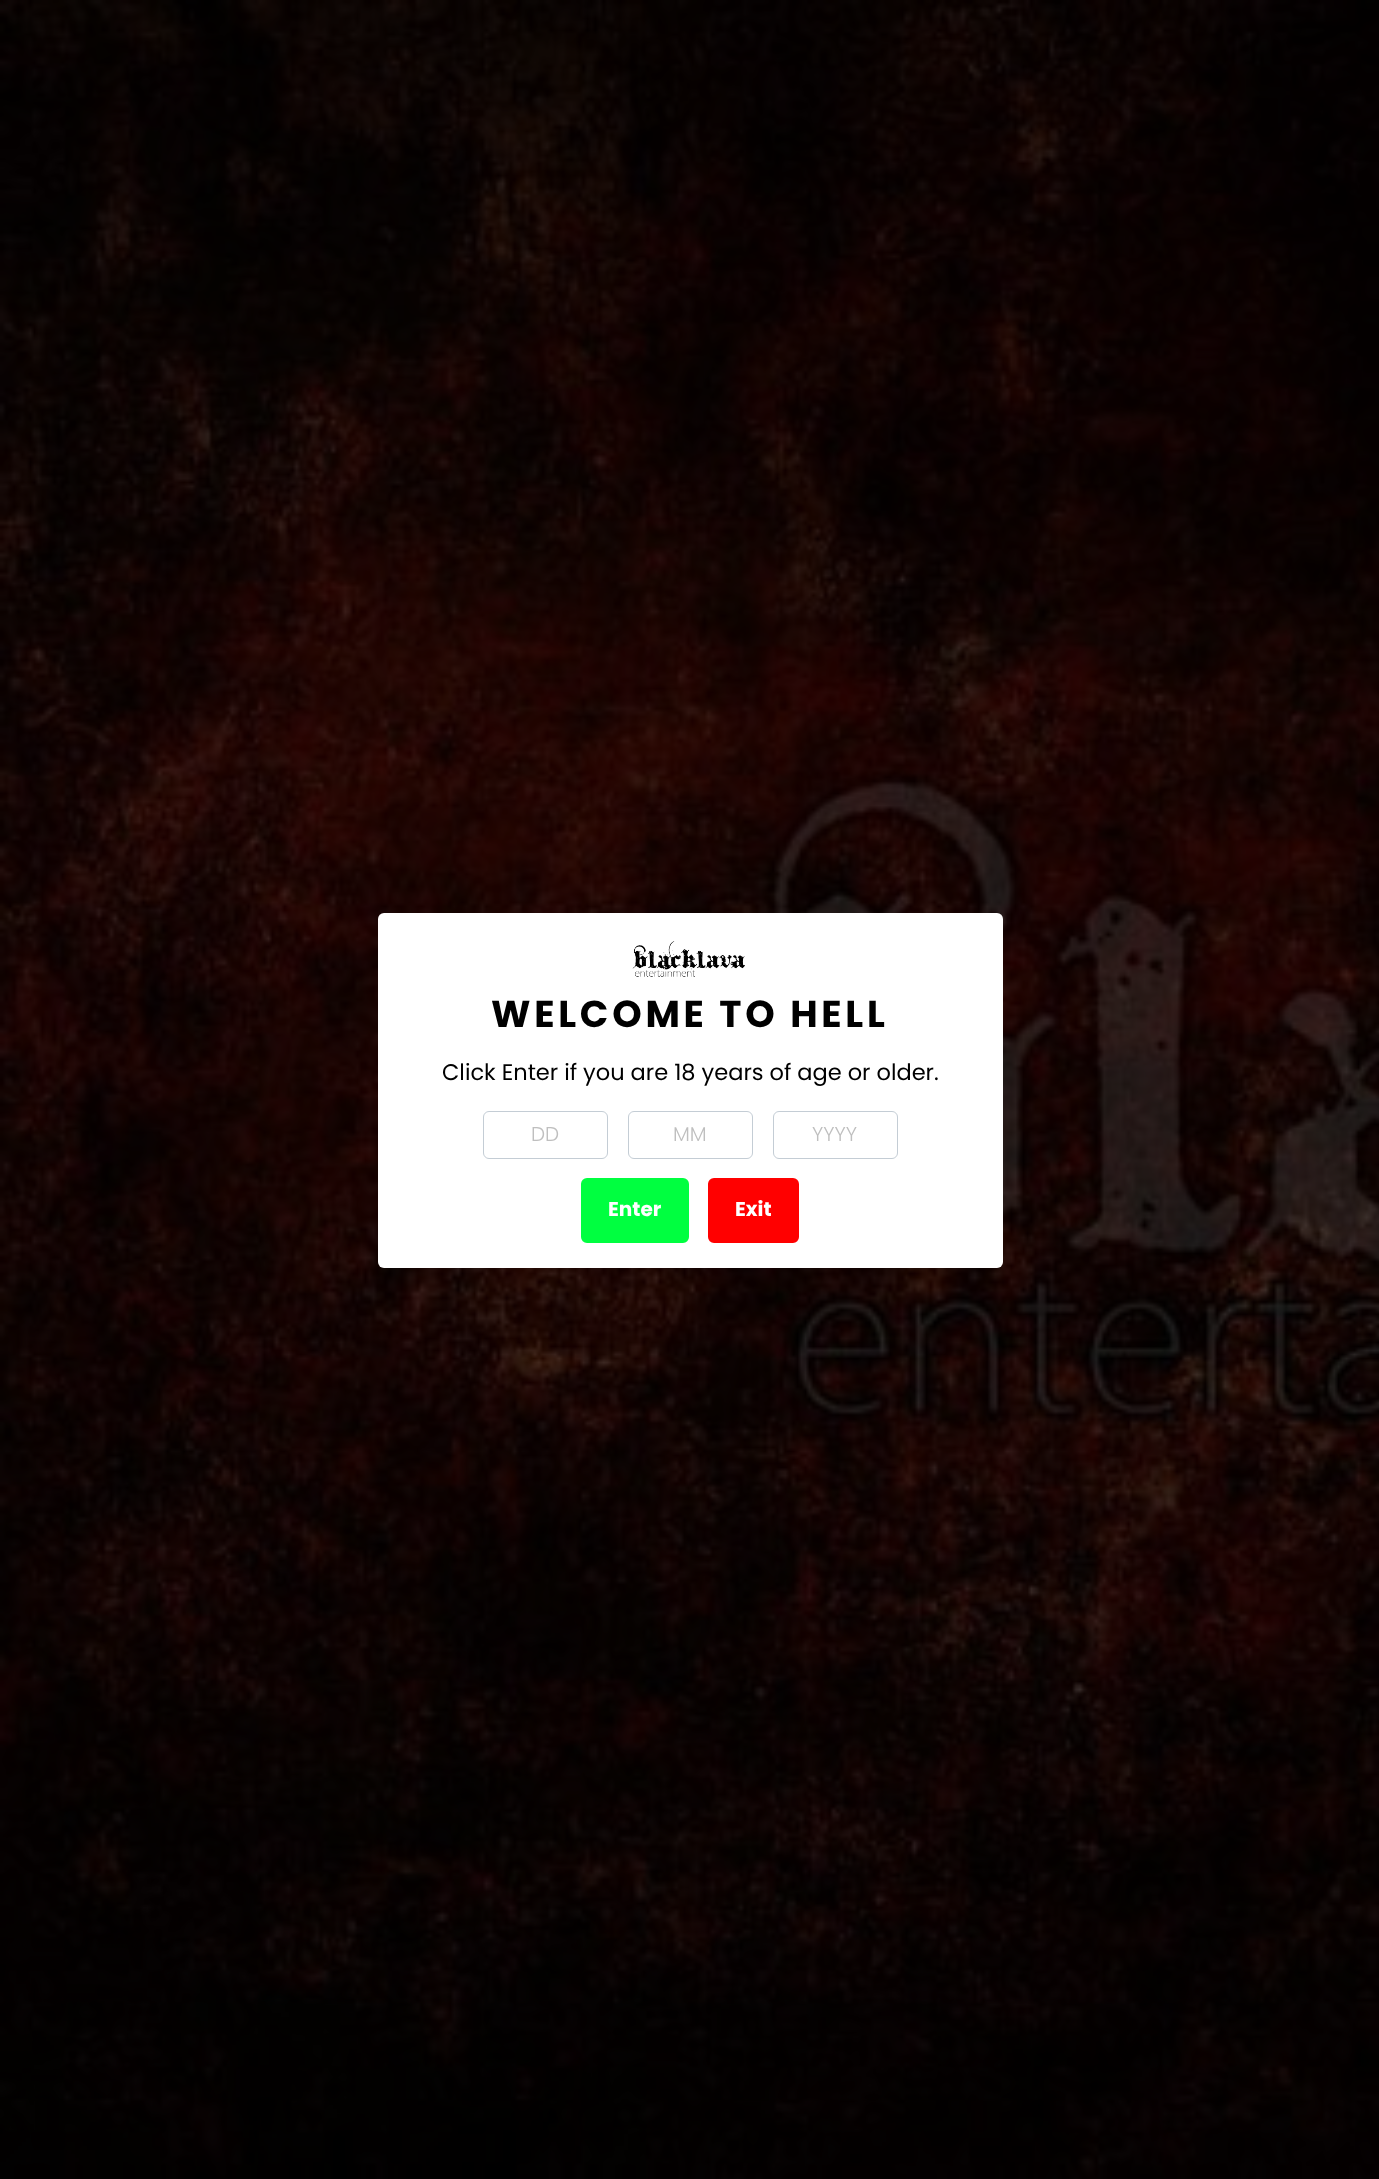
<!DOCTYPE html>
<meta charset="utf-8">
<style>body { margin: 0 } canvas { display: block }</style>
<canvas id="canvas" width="1379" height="2179"></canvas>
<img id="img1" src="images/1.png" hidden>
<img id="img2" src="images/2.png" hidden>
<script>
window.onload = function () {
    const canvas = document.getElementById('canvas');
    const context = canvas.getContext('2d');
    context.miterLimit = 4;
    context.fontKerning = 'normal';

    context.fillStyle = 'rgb(255, 255, 255)';
    context.fillRect(0, 0, 1379, 2179);
    context.drawImage(document.getElementById('img1'), 0, 0, 1379, 2179);
    context.beginPath();
    context.roundRect(378, 913, 625, 355, 6);
    context.fill();
    context.drawImage(document.getElementById('img2'), 632, 941, 113, 36);
    context.beginPath();
    context.roundRect(483.5, 1111.5, 124, 47, 5.5);
    context.strokeStyle = 'rgb(196, 205, 213)';
    context.stroke();
    context.beginPath();
    context.roundRect(628.5, 1111.5, 124, 47, 5.5);
    context.stroke();
    context.beginPath();
    context.roundRect(773.5, 1111.5, 124, 47, 5.5);
    context.stroke();
    context.fillStyle = 'rgb(0, 255, 64)';
    context.beginPath();
    context.roundRect(582.5, 1179.5, 105, 62, 4.5);
    context.fill();
    context.strokeStyle = 'rgb(0, 255, 64)';
    context.lineWidth = 3;
    context.stroke();
    context.fillStyle = 'rgb(255, 0, 0)';
    context.beginPath();
    context.roundRect(709.5, 1179.5, 88, 62, 4.5);
    context.fill();
    context.strokeStyle = 'rgb(255, 0, 0)';
    context.stroke();
    context.letterSpacing = '3.75px';
    context.font = 'bold 37.5px Poppins';
    context.fillStyle = 'rgb(0, 0, 0)';
    context.fillText('WELCOME TO HELL', 491, 1027);
    context.letterSpacing = '0px';
    context.font = '22.5px Poppins';
    context.fillText('Click Enter if you are 18 years of age or older.', 442, 1080);
    context.font = '300 20px Poppins';
    context.fillStyle = 'rgb(191, 191, 191)';
    context.fillText('DD', 531, 1141);
    context.fillText('MM', 673, 1141);
    context.fillText('YYYY', 812, 1141);
    context.font = 'bold 20px Poppins';
    context.fillStyle = 'rgb(255, 255, 255)';
    context.fillText('Enter', 608, 1216);
    context.fillText('Exit', 735, 1216);
};
</script>
